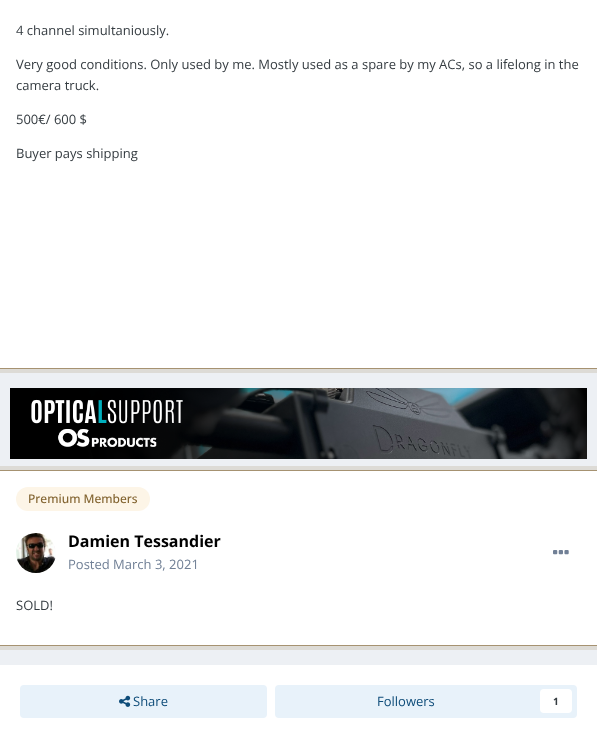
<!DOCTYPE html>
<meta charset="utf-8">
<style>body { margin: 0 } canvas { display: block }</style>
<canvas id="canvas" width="597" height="732"></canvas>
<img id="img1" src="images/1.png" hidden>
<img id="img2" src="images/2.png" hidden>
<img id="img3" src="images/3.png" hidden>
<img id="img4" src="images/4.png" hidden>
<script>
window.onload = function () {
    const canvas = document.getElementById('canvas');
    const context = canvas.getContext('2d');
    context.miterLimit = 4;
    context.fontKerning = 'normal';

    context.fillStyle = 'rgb(237, 240, 244)';
    context.fillRect(0, 0, 597, 732);
    context.strokeStyle = 'rgb(221, 219, 214)';
    context.lineWidth = 5;
    context.strokeRect(-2.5, -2.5, 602, 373);
    context.strokeStyle = 'rgb(166, 146, 113)';
    context.lineWidth = 1;
    context.strokeRect(-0.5, -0.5, 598, 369);
    context.fillStyle = 'rgb(255, 255, 255)';
    context.fillRect(0, 0, 597, 368);
    context.drawImage(document.getElementById('img1'), 10, 388, 577, 71);
    context.strokeStyle = 'rgb(221, 219, 214)';
    context.lineWidth = 5;
    context.strokeRect(-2.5, 468.5, 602, 179);
    context.strokeStyle = 'rgb(166, 146, 113)';
    context.lineWidth = 1;
    context.strokeRect(-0.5, 470.5, 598, 175);
    context.fillRect(0, 471, 597, 174);
    context.fillStyle = 'rgb(253, 245, 231)';
    context.beginPath();
    context.roundRect(16, 487, 134, 24, 12);
    context.fill();
    context.drawImage(document.getElementById('img2'), 16, 533, 40, 40);
    context.drawImage(document.getElementById('img3'), 553, 550, 16, 5);
    context.fillStyle = 'rgb(255, 255, 255)';
    context.fillRect(0, 665, 597, 67);
    context.fillStyle = 'rgb(232, 242, 250)';
    context.beginPath();
    context.roundRect(20, 685, 247, 33, 4);
    context.fill();
    context.drawImage(document.getElementById('img4'), 119, 695, 12, 12);
    context.beginPath();
    context.roundRect(275, 685, 302, 33, 4);
    context.fill();
    context.fillStyle = 'rgb(255, 255, 255)';
    context.beginPath();
    context.roundRect(540, 689, 32, 24, 4);
    context.fill();
    context.font = '13px Open Sans';
    context.fillStyle = 'rgb(53, 60, 65)';
    context.fillText('4 channel simultaniously.', 16, 35);
    context.fillText('Very good conditions. Only used by me. Mostly used as a spare by my ACs, so a lifelong in the', 16, 69);
    context.fillText('camera truck.', 16, 90);
    context.fillText('500€/ 600 $', 16, 124);
    context.fillText('Buyer pays shipping', 16, 158);
    context.font = '500 12px Open Sans';
    context.fillStyle = 'rgb(129, 98, 46)';
    context.fillText('Premium Members', 28, 503);
    context.font = 'bold 16px Open Sans';
    context.fillStyle = 'rgb(0, 0, 0)';
    context.fillText('Damien Tessandier', 68, 547);
    context.font = '13px Open Sans';
    context.fillStyle = 'rgb(113, 128, 150)';
    context.fillText('Posted March 3, 2021', 68, 569);
    context.fillStyle = 'rgb(53, 60, 65)';
    context.fillText('SOLD!', 16, 610);
    context.fillStyle = 'rgb(14, 76, 121)';
    context.fillText('Share', 133, 706);
    context.fillText('Followers', 377, 706);
    context.font = 'bold 10px Open Sans';
    context.fillStyle = 'rgb(53, 60, 65)';
    context.fillText('1', 553, 705);
};
</script>
